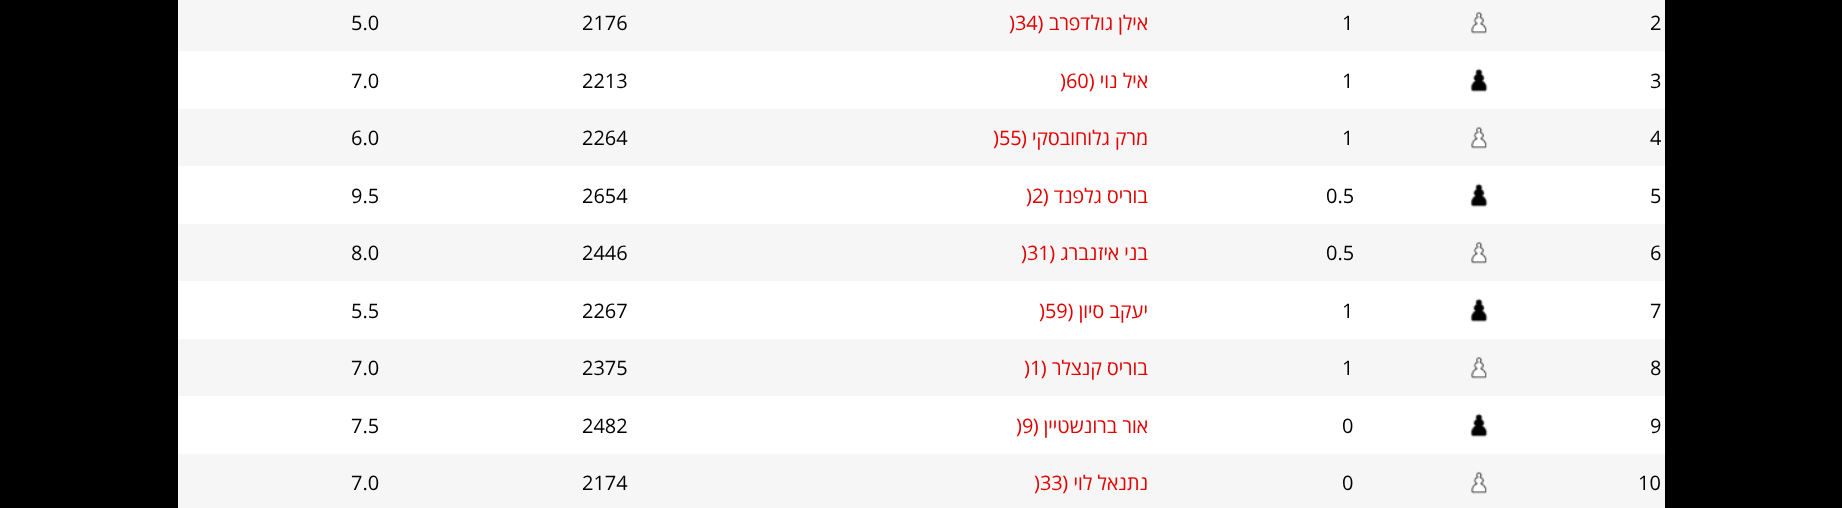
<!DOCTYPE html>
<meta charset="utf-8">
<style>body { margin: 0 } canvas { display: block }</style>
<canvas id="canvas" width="1842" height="508"></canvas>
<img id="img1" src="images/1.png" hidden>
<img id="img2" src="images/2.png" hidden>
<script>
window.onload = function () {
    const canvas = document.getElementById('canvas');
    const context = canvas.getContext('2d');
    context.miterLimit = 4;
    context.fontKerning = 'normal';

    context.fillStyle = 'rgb(0, 0, 0)';
    context.fillRect(0, 0, 1842, 508);
    context.fillStyle = 'rgb(255, 255, 255)';
    context.fillRect(178, 51, 1487, 403);
    context.fillStyle = 'rgb(246, 246, 246)';
    context.fillRect(178, 0, 1487, 51);
    context.drawImage(document.getElementById('img1'), 1471, 11, 16, 23);
    context.drawImage(document.getElementById('img2'), 1470, 68, 18, 25);
    context.fillRect(178, 109, 1487, 57);
    context.drawImage(document.getElementById('img1'), 1471, 126, 16, 23);
    context.drawImage(document.getElementById('img2'), 1470, 183, 18, 25);
    context.fillRect(178, 224, 1487, 57);
    context.drawImage(document.getElementById('img1'), 1471, 241, 16, 23);
    context.drawImage(document.getElementById('img2'), 1470, 298, 18, 25);
    context.fillRect(178, 339, 1487, 57);
    context.drawImage(document.getElementById('img1'), 1471, 356, 16, 23);
    context.drawImage(document.getElementById('img2'), 1470, 413, 18, 25);
    context.fillRect(178, 454, 1487, 54);
    context.drawImage(document.getElementById('img1'), 1471, 471, 16, 23);
    context.font = '20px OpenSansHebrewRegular';
    context.fillStyle = 'rgb(0, 0, 0)';
    context.fillText('2', 1650, 30);
    context.fillText('1', 1342, 30);
    context.direction = 'rtl';
    context.fillStyle = 'rgb(227, 0, 0)';
    context.fillText('אילן גולדפרב (', 1148, 30);
    context.direction = 'ltr';
    context.fillText(')34', 1009, 30);
    context.fillStyle = 'rgb(0, 0, 0)';
    context.fillText('2176', 582, 30);
    context.fillText('5.0', 351, 30);
    context.fillText('3', 1650, 88);
    context.fillText('1', 1342, 88);
    context.direction = 'rtl';
    context.fillStyle = 'rgb(227, 0, 0)';
    context.fillText('איל נוי (', 1148, 88);
    context.direction = 'ltr';
    context.fillText(')60', 1060, 88);
    context.fillStyle = 'rgb(0, 0, 0)';
    context.fillText('2213', 582, 88);
    context.fillText('7.0', 351, 88);
    context.fillText('4', 1650, 145);
    context.fillText('1', 1342, 145);
    context.direction = 'rtl';
    context.fillStyle = 'rgb(227, 0, 0)';
    context.fillText('מרק גלוחובסקי (', 1148, 145);
    context.direction = 'ltr';
    context.fillText(')55', 993, 145);
    context.fillStyle = 'rgb(0, 0, 0)';
    context.fillText('2264', 582, 145);
    context.fillText('6.0', 351, 145);
    context.fillText('5', 1650, 203);
    context.fillText('0.5', 1326, 203);
    context.direction = 'rtl';
    context.fillStyle = 'rgb(227, 0, 0)';
    context.fillText('בוריס גלפנד (', 1148, 203);
    context.direction = 'ltr';
    context.fillText(')2', 1026, 203);
    context.fillStyle = 'rgb(0, 0, 0)';
    context.fillText('2654', 582, 203);
    context.fillText('9.5', 351, 203);
    context.fillText('6', 1650, 260);
    context.fillText('0.5', 1326, 260);
    context.direction = 'rtl';
    context.fillStyle = 'rgb(227, 0, 0)';
    context.fillText('בני איזנברג (', 1148, 260);
    context.direction = 'ltr';
    context.fillText(')31', 1021, 260);
    context.fillStyle = 'rgb(0, 0, 0)';
    context.fillText('2446', 582, 260);
    context.fillText('8.0', 351, 260);
    context.fillText('7', 1650, 318);
    context.fillText('1', 1342, 318);
    context.direction = 'rtl';
    context.fillStyle = 'rgb(227, 0, 0)';
    context.fillText('יעקב סיון (', 1148, 318);
    context.direction = 'ltr';
    context.fillText(')59', 1039, 318);
    context.fillStyle = 'rgb(0, 0, 0)';
    context.fillText('2267', 582, 318);
    context.fillText('5.5', 351, 318);
    context.fillText('8', 1650, 375);
    context.fillText('1', 1342, 375);
    context.direction = 'rtl';
    context.fillStyle = 'rgb(227, 0, 0)';
    context.fillText('בוריס קנצלר (', 1148, 375);
    context.direction = 'ltr';
    context.fillText(')1', 1024, 375);
    context.fillStyle = 'rgb(0, 0, 0)';
    context.fillText('2375', 582, 375);
    context.fillText('7.0', 351, 375);
    context.fillText('9', 1650, 433);
    context.fillText('0', 1342, 433);
    context.direction = 'rtl';
    context.fillStyle = 'rgb(227, 0, 0)';
    context.fillText('אור ברונשטיין (', 1148, 433);
    context.direction = 'ltr';
    context.fillText(')9', 1016, 433);
    context.fillStyle = 'rgb(0, 0, 0)';
    context.fillText('2482', 582, 433);
    context.fillText('7.5', 351, 433);
    context.fillText('10', 1638, 490);
    context.fillText('0', 1342, 490);
    context.direction = 'rtl';
    context.fillStyle = 'rgb(227, 0, 0)';
    context.fillText('נתנאל לוי (', 1148, 490);
    context.direction = 'ltr';
    context.fillText(')33', 1034, 490);
    context.fillStyle = 'rgb(0, 0, 0)';
    context.fillText('2174', 582, 490);
    context.fillText('7.0', 351, 490);
};
</script>
